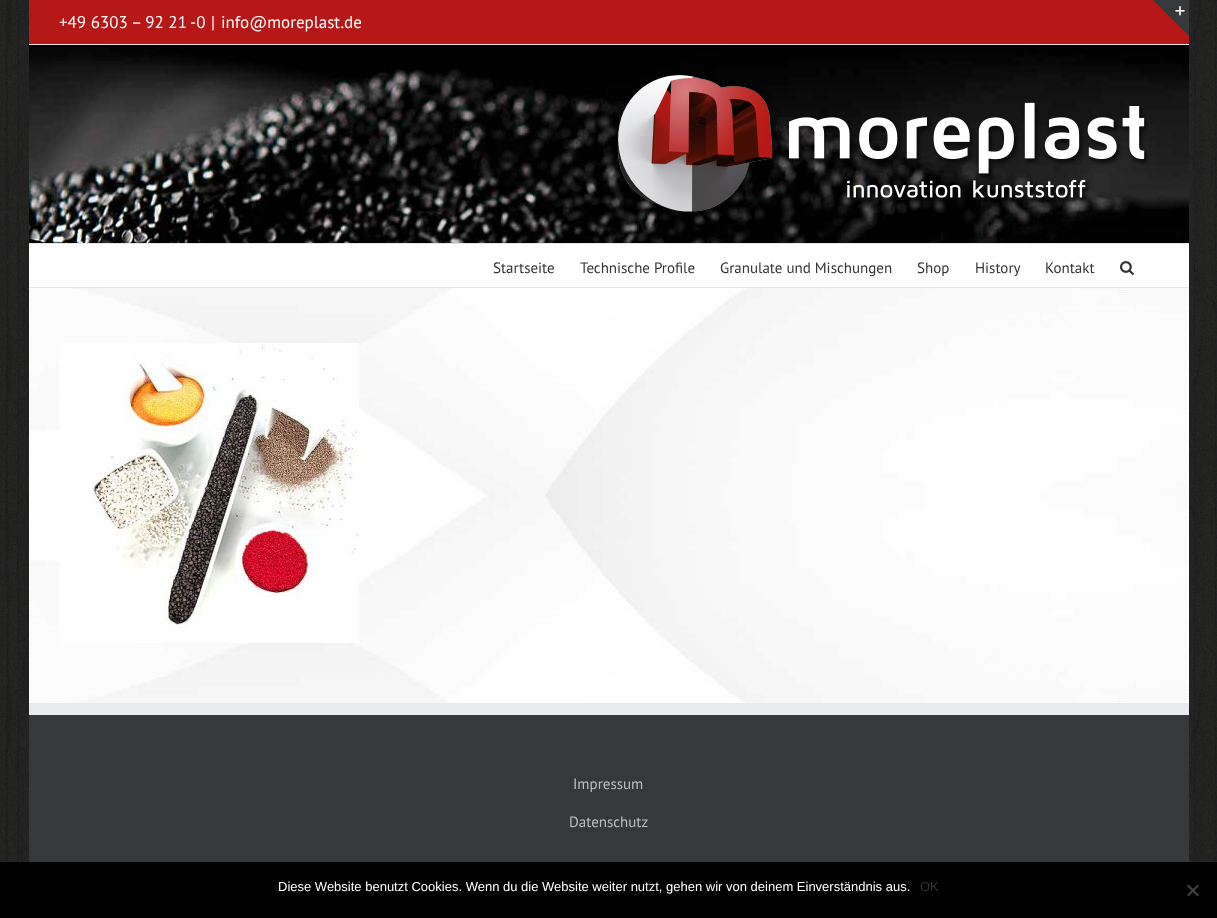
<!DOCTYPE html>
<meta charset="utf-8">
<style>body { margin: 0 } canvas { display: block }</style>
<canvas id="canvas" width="1217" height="918"></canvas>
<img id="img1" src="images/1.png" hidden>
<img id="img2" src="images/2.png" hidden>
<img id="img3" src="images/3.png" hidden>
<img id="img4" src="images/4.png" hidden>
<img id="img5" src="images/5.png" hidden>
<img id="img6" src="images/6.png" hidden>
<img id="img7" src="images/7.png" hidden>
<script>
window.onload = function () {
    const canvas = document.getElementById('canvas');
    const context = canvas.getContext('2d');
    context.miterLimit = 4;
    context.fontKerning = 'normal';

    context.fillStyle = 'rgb(255, 255, 255)';
    context.fillRect(0, 0, 1217, 918);
    context.drawImage(document.getElementById('img1'), 0, 0, 1217, 862);
    context.fillStyle = 'rgb(182, 24, 23)';
    context.fillRect(29, 0, 1160, 44);
    context.fillStyle = 'rgb(229, 229, 229)';
    context.fillRect(29, 44, 1160, 1);
    context.drawImage(document.getElementById('img2'), 29, 45, 1160, 198);
    context.fillRect(29, 243, 1160, 1);
    context.drawImage(document.getElementById('img3'), 617, 75, 531, 142);
    context.fillStyle = 'rgb(255, 255, 255)';
    context.fillRect(29, 244, 1160, 43);
    context.fillStyle = 'rgb(229, 229, 229)';
    context.fillRect(29, 287, 1160, 1);
    context.drawImage(document.getElementById('img4'), 1120, 261, 14, 14);
    context.fillStyle = 'rgb(54, 56, 57)';
    context.beginPath();
    context.moveTo(1153, 0);
    context.lineTo(1189, 0);
    context.lineTo(1189, 36);
    context.closePath();
    context.fill();
    context.drawImage(document.getElementById('img5'), 1175, 6, 10, 10);
    context.drawImage(document.getElementById('img6'), 29, 288, 1160, 415);
    context.drawImage(document.getElementById('img7'), 59, 343, 300, 300);
    context.fillRect(29, 715, 1160, 147);
    context.fillStyle = 'rgb(233, 234, 238)';
    context.fillRect(29, 703, 1160, 12);
    context.fillStyle = 'rgb(0, 0, 0)';
    context.fillRect(0, 862, 1217, 56);
    context.fillStyle = 'rgb(64, 64, 64)';
    context.beginPath();
    context.moveTo(1197.5, 884.5);
    context.lineTo(1199, 886);
    context.lineTo(1188.5, 896.5);
    context.lineTo(1187, 895);
    context.closePath();
    context.fill();
    context.beginPath();
    context.moveTo(1187, 886);
    context.lineTo(1188.5, 884.5);
    context.lineTo(1199, 895);
    context.lineTo(1197.5, 896.5);
    context.closePath();
    context.fill();
    context.font = '17px PT Sans';
    context.fillStyle = 'rgb(255, 255, 255)';
    context.fillText('+49 6303 – 92 21 -0', 59, 28);
    context.fillText('|', 211, 28);
    context.fillText('info@moreplast.de', 221, 28);
    context.font = '15px PT Sans';
    context.fillStyle = 'rgb(51, 51, 51)';
    context.fillText('Startseite', 493, 273);
    context.fillText('Technische Profile', 580, 273);
    context.fillText('Granulate und Mischungen', 720, 273);
    context.fillText('Shop', 917, 273);
    context.fillText('History', 975, 273);
    context.fillText('Kontakt', 1045, 273);
    context.fillStyle = 'rgb(191, 191, 191)';
    context.fillText('Impressum', 573, 789);
    context.fillText('Datenschutz', 569, 827);
    context.font = '13px Liberation Sans';
    context.fillStyle = 'rgb(255, 255, 255)';
    context.fillText('Diese Website benutzt Cookies. Wenn du die Website weiter nutzt, gehen wir von deinem Einverständnis aus.', 278, 891);
    context.fillStyle = 'rgb(51, 51, 51)';
    context.fillText('OK', 920, 891);
};
</script>
